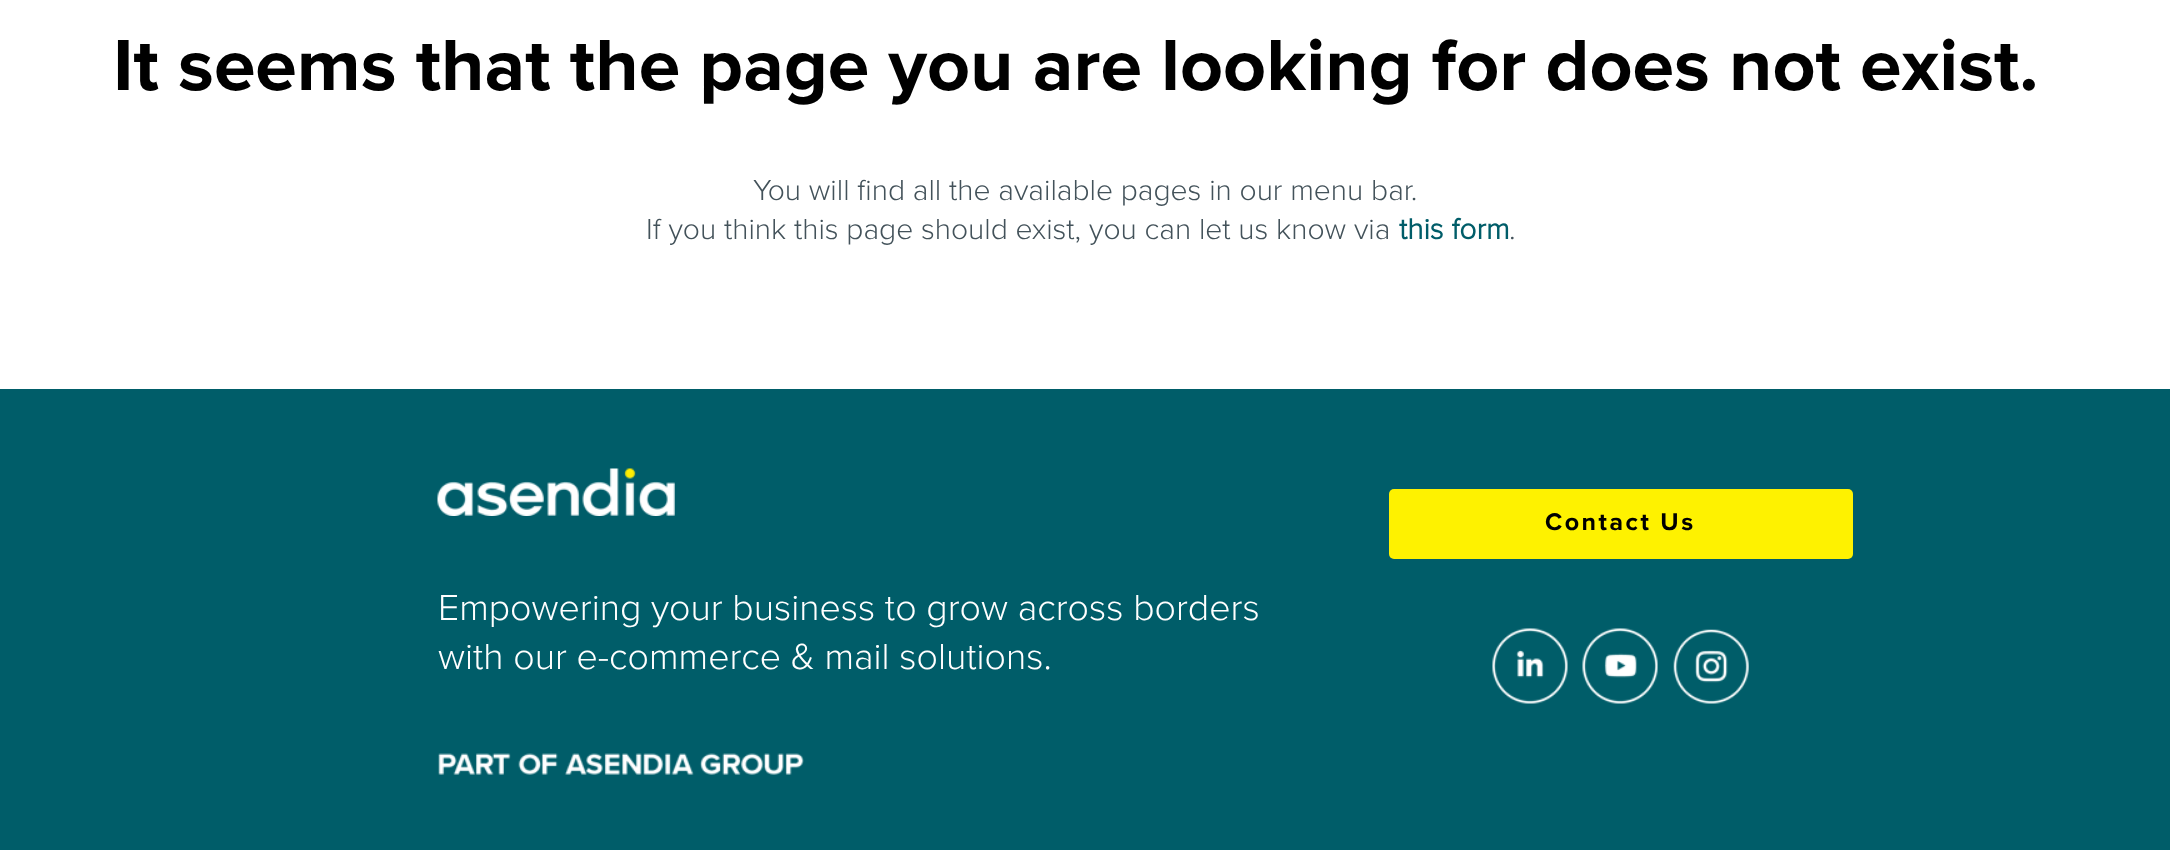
<!DOCTYPE html>
<meta charset="utf-8">
<style>body { margin: 0 } canvas { display: block }</style>
<canvas id="canvas" width="2170" height="850"></canvas>
<img id="img1" src="images/1.png" hidden>
<img id="img2" src="images/2.png" hidden>
<img id="img3" src="images/3.png" hidden>
<img id="img4" src="images/4.png" hidden>
<img id="img5" src="images/5.png" hidden>
<script>
window.onload = function () {
    const canvas = document.getElementById('canvas');
    const context = canvas.getContext('2d');
    context.miterLimit = 4;
    context.fontKerning = 'normal';

    context.fillStyle = 'rgb(255, 255, 255)';
    context.fillRect(0, 0, 2170, 850);
    context.fillStyle = 'rgb(0, 93, 105)';
    context.fillRect(0, 389, 2170, 461);
    context.fillStyle = 'rgb(254, 242, 0)';
    context.beginPath();
    context.roundRect(1389, 489, 464, 70, 5);
    context.fill();
    context.drawImage(document.getElementById('img1'), 1492, 628, 76, 76);
    context.drawImage(document.getElementById('img2'), 1582, 628, 76, 76);
    context.drawImage(document.getElementById('img3'), 1673, 629, 76, 75);
    context.drawImage(document.getElementById('img4'), 437, 468, 238, 48);
    context.drawImage(document.getElementById('img5'), 438, 753, 366, 22);
    context.font = 'bold 75px "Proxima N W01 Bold"';
    context.fillStyle = 'rgb(0, 0, 0)';
    context.fillText('It seems that the page you are looking for does not exist.', 113, 90);
    context.font = '300 30px Proxima Nova';
    context.fillStyle = 'rgb(67, 82, 90)';
    context.fillText('You will find all the available pages in our menu bar.', 753, 200);
    context.fillText('If you think this page should exist, you can let us know via', 646, 239);
    context.font = 'bold 30px Proxima Nova';
    context.fillStyle = 'rgb(0, 93, 105)';
    context.fillText('this form', 1399, 239);
    context.font = '300 30px Proxima Nova';
    context.fillStyle = 'rgb(67, 82, 90)';
    context.fillText('.', 1509, 239);
    context.letterSpacing = '2.5px';
    context.font = 'bold 25px "Proxima N W01 Bold"';
    context.fillStyle = 'rgb(0, 0, 0)';
    context.fillText('Contact Us', 1545, 530);
    context.letterSpacing = '0px';
    context.font = '300 37.5px Proxima Nova';
    context.fillStyle = 'rgb(255, 255, 255)';
    context.fillText('Empowering your business to grow across borders', 438, 620);
    context.fillText('with our e-commerce & mail solutions.', 438, 669);
};
</script>
